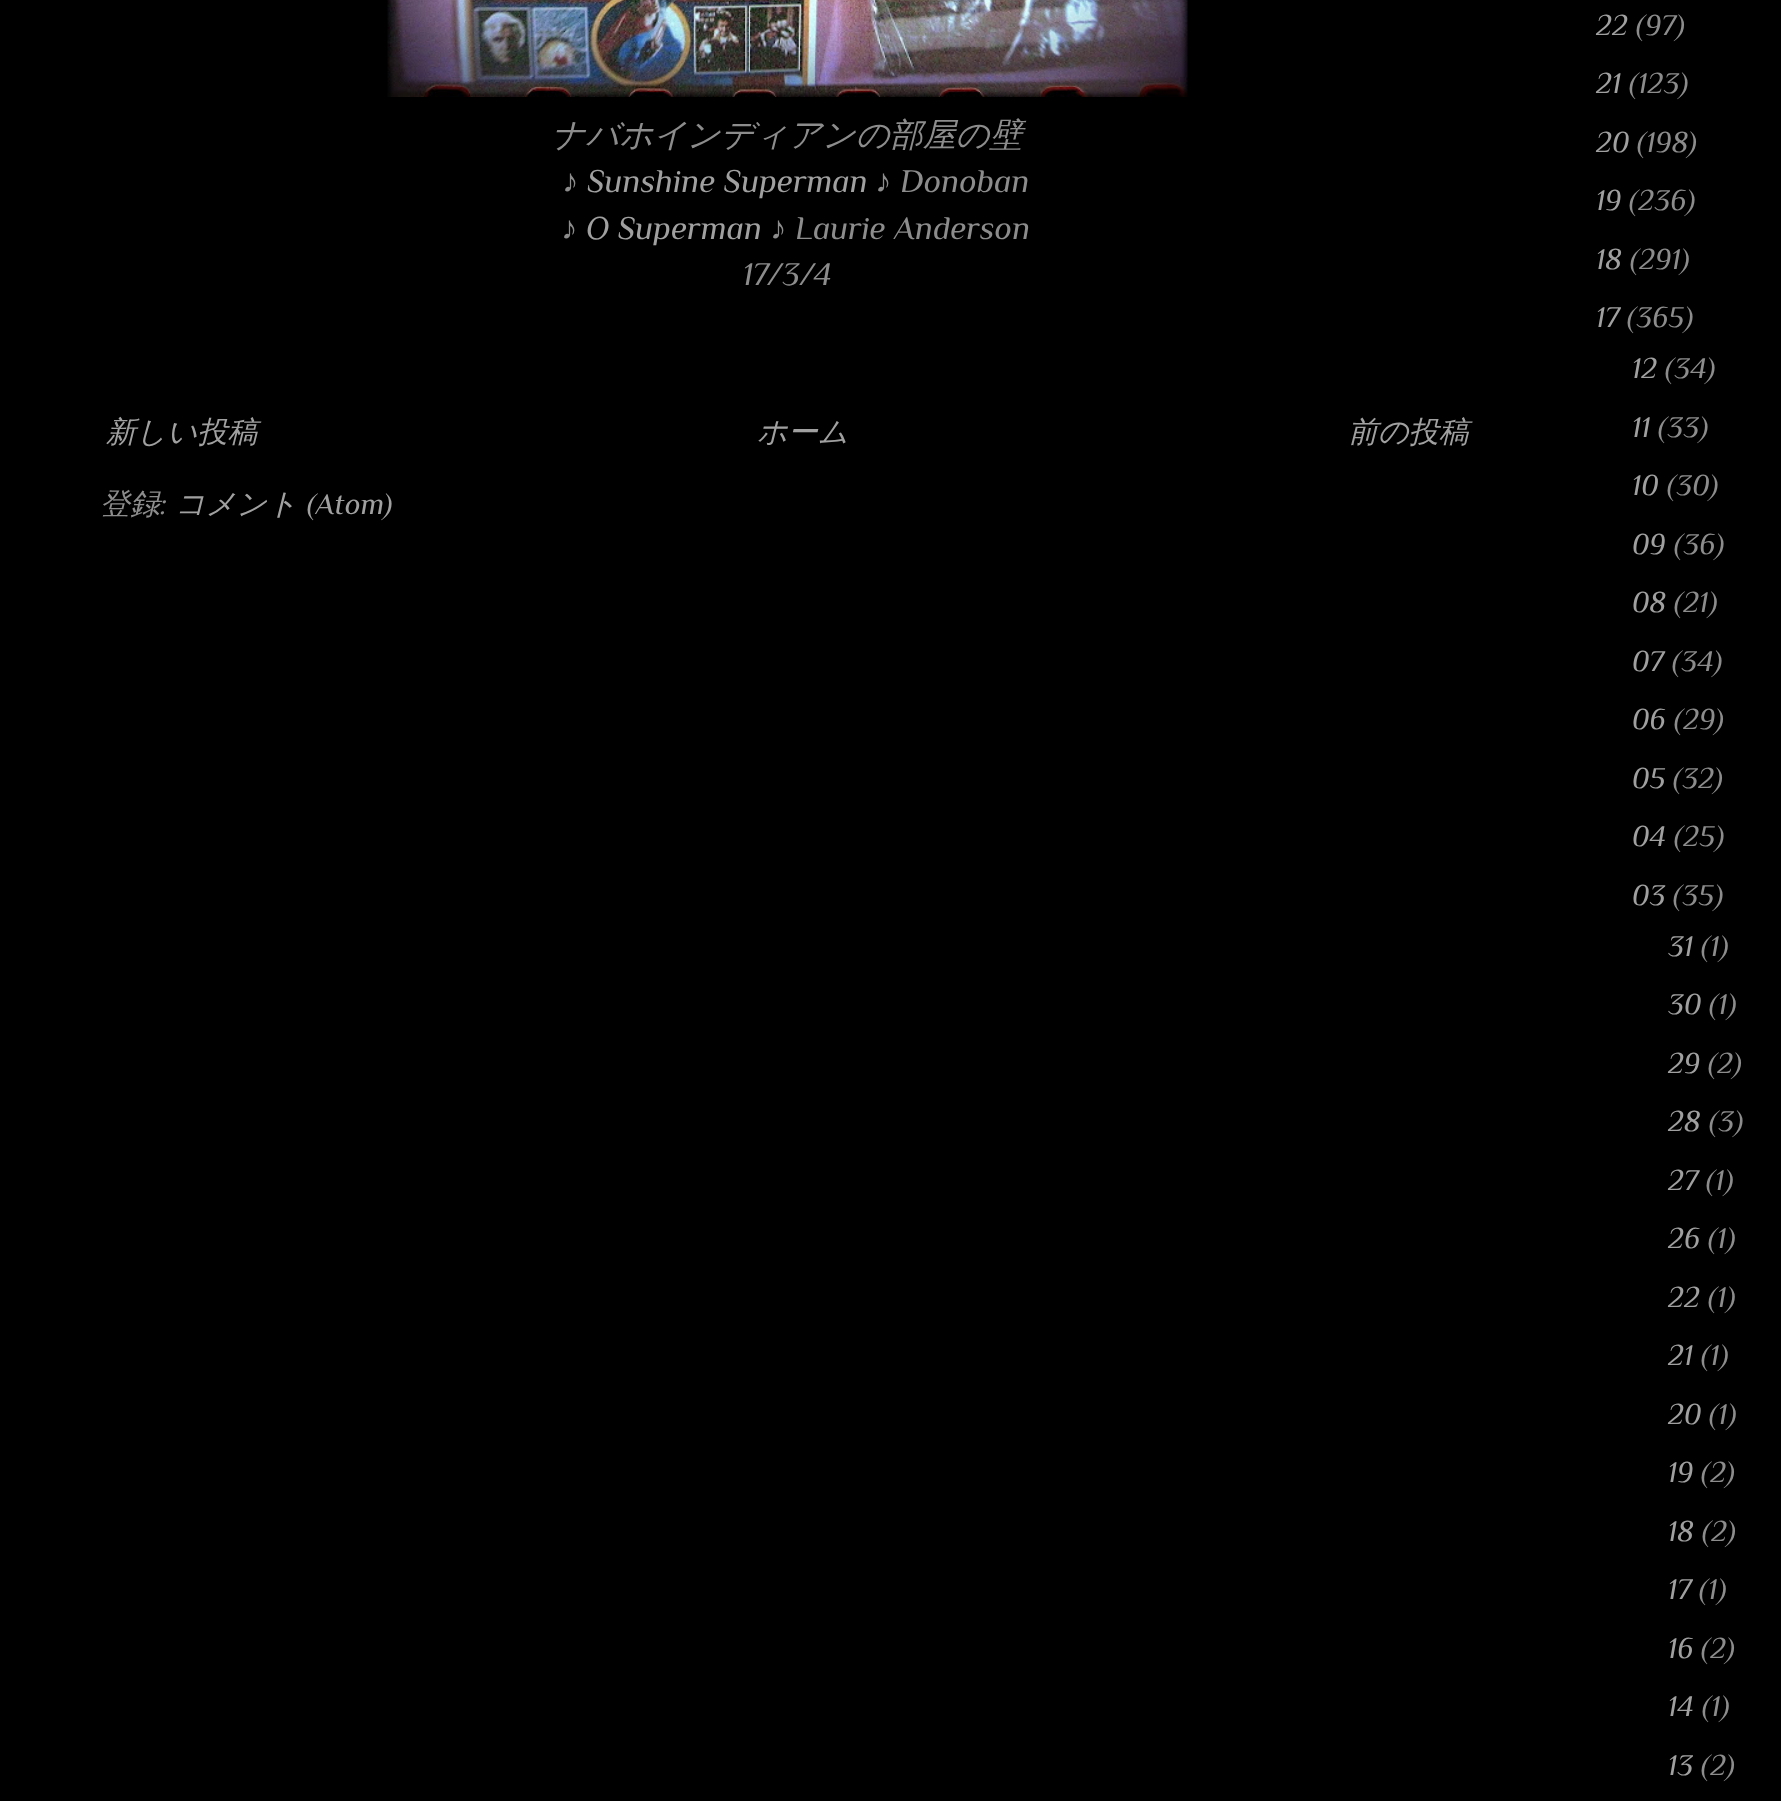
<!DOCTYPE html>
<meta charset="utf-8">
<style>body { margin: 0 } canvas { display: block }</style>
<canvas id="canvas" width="1781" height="1801"></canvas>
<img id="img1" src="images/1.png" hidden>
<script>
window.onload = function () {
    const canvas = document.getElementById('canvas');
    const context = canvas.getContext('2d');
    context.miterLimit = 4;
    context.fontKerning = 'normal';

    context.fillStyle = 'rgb(0, 0, 0)';
    context.fillRect(0, 0, 1781, 1801);
    context.drawImage(document.getElementById('img1'), 387, 0, 801, 97);
    context.font = 'italic 500 33px WenQuanYi Zen Hei';
    context.fillStyle = 'rgb(140, 140, 140)';
    context.fillText('ナバホインディアンの部屋の壁', 552, 146);
    context.font = 'italic 33px Liberation Serif';
    context.fillText('♪', 562, 192);
    context.font = 'italic 33px Philosopher';
    context.fillStyle = 'rgb(160, 160, 160)';
    context.fillText('Sunshine Superman', 587, 192);
    context.font = 'italic 33px Liberation Serif';
    context.fillStyle = 'rgb(140, 140, 140)';
    context.fillText('♪', 875, 192);
    context.font = 'italic 33px Philosopher';
    context.fillText('Donoban', 900, 192);
    context.font = 'italic 33px Liberation Serif';
    context.fillText('♪', 561, 239);
    context.font = 'italic 33px Philosopher';
    context.fillStyle = 'rgb(160, 160, 160)';
    context.fillText('O Superman', 586, 239);
    context.font = 'italic 33px Liberation Serif';
    context.fillStyle = 'rgb(140, 140, 140)';
    context.fillText('♪', 770, 239);
    context.font = 'italic 33px Philosopher';
    context.fillText('Laurie Anderson', 795, 239);
    context.fillText('17/3/4', 743, 285);
    context.font = 'italic 500 30px WenQuanYi Zen Hei';
    context.fillStyle = 'rgb(160, 160, 160)';
    context.fillText('新しい投稿', 106, 442);
    context.fillText('ホーム', 757, 442);
    context.fillText('前の投稿', 1348, 442);
    context.fillStyle = 'rgb(140, 140, 140)';
    context.fillText('登録', 100, 514);
    context.fillStyle = 'rgb(160, 160, 160)';
    context.fillText('コメント', 175, 514);
    context.font = 'italic 30px Philosopher';
    context.fillText('(Atom)', 307, 514);
    context.fillStyle = 'rgb(140, 140, 140)';
    context.fillText(':', 160, 514);
    context.fillStyle = 'rgb(160, 160, 160)';
    context.fillText('22', 1596, 35);
    context.fillStyle = 'rgb(140, 140, 140)';
    context.fillText('(97)', 1636, 35);
    context.fillStyle = 'rgb(160, 160, 160)';
    context.fillText('21', 1596, 93);
    context.fillStyle = 'rgb(140, 140, 140)';
    context.fillText('(123)', 1629, 93);
    context.fillStyle = 'rgb(160, 160, 160)';
    context.fillText('20', 1596, 152);
    context.fillStyle = 'rgb(140, 140, 140)';
    context.fillText('(198)', 1637, 152);
    context.fillStyle = 'rgb(160, 160, 160)';
    context.fillText('19', 1596, 210);
    context.fillStyle = 'rgb(140, 140, 140)';
    context.fillText('(236)', 1629, 210);
    context.fillStyle = 'rgb(160, 160, 160)';
    context.fillText('18', 1596, 269);
    context.fillStyle = 'rgb(140, 140, 140)';
    context.fillText('(291)', 1630, 269);
    context.fillStyle = 'rgb(160, 160, 160)';
    context.fillText('17', 1596, 327);
    context.fillStyle = 'rgb(140, 140, 140)';
    context.fillText('(365)', 1627, 327);
    context.fillStyle = 'rgb(160, 160, 160)';
    context.fillText('12', 1632, 378);
    context.fillStyle = 'rgb(140, 140, 140)';
    context.fillText('(34)', 1665, 378);
    context.fillStyle = 'rgb(160, 160, 160)';
    context.fillText('11', 1632, 437);
    context.fillStyle = 'rgb(140, 140, 140)';
    context.fillText('(33)', 1658, 437);
    context.fillStyle = 'rgb(160, 160, 160)';
    context.fillText('10', 1632, 495);
    context.fillStyle = 'rgb(140, 140, 140)';
    context.fillText('(30)', 1667, 495);
    context.fillStyle = 'rgb(160, 160, 160)';
    context.fillText('09', 1632, 554);
    context.fillStyle = 'rgb(140, 140, 140)';
    context.fillText('(36)', 1674, 554);
    context.fillStyle = 'rgb(160, 160, 160)';
    context.fillText('08', 1632, 612);
    context.fillStyle = 'rgb(140, 140, 140)';
    context.fillText('(21)', 1674, 612);
    context.fillStyle = 'rgb(160, 160, 160)';
    context.fillText('07', 1632, 671);
    context.fillStyle = 'rgb(140, 140, 140)';
    context.fillText('(34)', 1672, 671);
    context.fillStyle = 'rgb(160, 160, 160)';
    context.fillText('06', 1632, 729);
    context.fillStyle = 'rgb(140, 140, 140)';
    context.fillText('(29)', 1674, 729);
    context.fillStyle = 'rgb(160, 160, 160)';
    context.fillText('05', 1632, 788);
    context.fillStyle = 'rgb(140, 140, 140)';
    context.fillText('(32)', 1673, 788);
    context.fillStyle = 'rgb(160, 160, 160)';
    context.fillText('04', 1632, 846);
    context.fillStyle = 'rgb(140, 140, 140)';
    context.fillText('(25)', 1674, 846);
    context.fillStyle = 'rgb(160, 160, 160)';
    context.fillText('03', 1632, 905);
    context.fillStyle = 'rgb(140, 140, 140)';
    context.fillText('(35)', 1673, 905);
    context.fillStyle = 'rgb(160, 160, 160)';
    context.fillText('31', 1668, 956);
    context.fillStyle = 'rgb(140, 140, 140)';
    context.fillText('(1)', 1701, 956);
    context.fillStyle = 'rgb(160, 160, 160)';
    context.fillText('30', 1668, 1014);
    context.fillStyle = 'rgb(140, 140, 140)';
    context.fillText('(1)', 1709, 1014);
    context.fillStyle = 'rgb(160, 160, 160)';
    context.fillText('29', 1668, 1073);
    context.fillStyle = 'rgb(140, 140, 140)';
    context.fillText('(2)', 1708, 1073);
    context.fillStyle = 'rgb(160, 160, 160)';
    context.fillText('28', 1668, 1131);
    context.fillStyle = 'rgb(140, 140, 140)';
    context.fillText('(3)', 1709, 1131);
    context.fillStyle = 'rgb(160, 160, 160)';
    context.fillText('27', 1668, 1190);
    context.fillStyle = 'rgb(140, 140, 140)';
    context.fillText('(1)', 1706, 1190);
    context.fillStyle = 'rgb(160, 160, 160)';
    context.fillText('26', 1668, 1248);
    context.fillStyle = 'rgb(140, 140, 140)';
    context.fillText('(1)', 1708, 1248);
    context.fillStyle = 'rgb(160, 160, 160)';
    context.fillText('22', 1668, 1307);
    context.fillStyle = 'rgb(140, 140, 140)';
    context.fillText('(1)', 1708, 1307);
    context.fillStyle = 'rgb(160, 160, 160)';
    context.fillText('21', 1668, 1365);
    context.fillStyle = 'rgb(140, 140, 140)';
    context.fillText('(1)', 1701, 1365);
    context.fillStyle = 'rgb(160, 160, 160)';
    context.fillText('20', 1668, 1424);
    context.fillStyle = 'rgb(140, 140, 140)';
    context.fillText('(1)', 1709, 1424);
    context.fillStyle = 'rgb(160, 160, 160)';
    context.fillText('19', 1668, 1482);
    context.fillStyle = 'rgb(140, 140, 140)';
    context.fillText('(2)', 1701, 1482);
    context.fillStyle = 'rgb(160, 160, 160)';
    context.fillText('18', 1668, 1541);
    context.fillStyle = 'rgb(140, 140, 140)';
    context.fillText('(2)', 1702, 1541);
    context.fillStyle = 'rgb(160, 160, 160)';
    context.fillText('17', 1668, 1599);
    context.fillStyle = 'rgb(140, 140, 140)';
    context.fillText('(1)', 1699, 1599);
    context.fillStyle = 'rgb(160, 160, 160)';
    context.fillText('16', 1668, 1658);
    context.fillStyle = 'rgb(140, 140, 140)';
    context.fillText('(2)', 1701, 1658);
    context.fillStyle = 'rgb(160, 160, 160)';
    context.fillText('14', 1668, 1716);
    context.fillStyle = 'rgb(140, 140, 140)';
    context.fillText('(1)', 1702, 1716);
    context.fillStyle = 'rgb(160, 160, 160)';
    context.fillText('13', 1668, 1775);
    context.fillStyle = 'rgb(140, 140, 140)';
    context.fillText('(2)', 1701, 1775);
};
</script>
